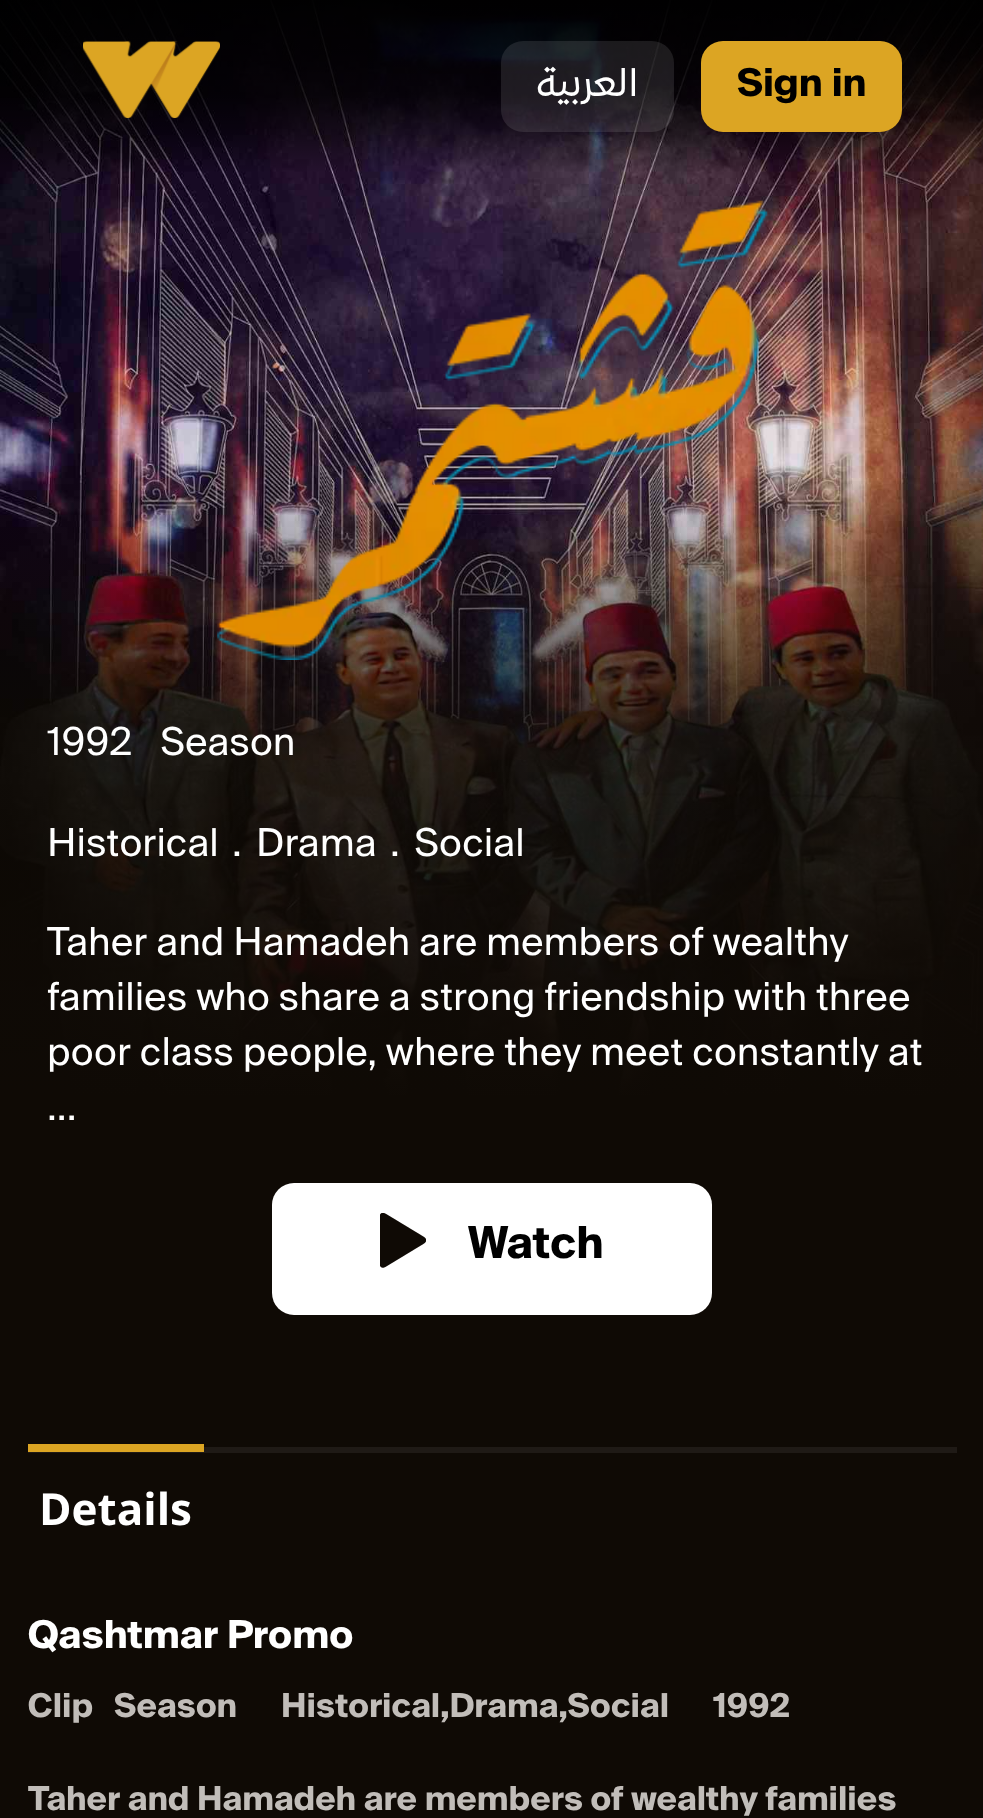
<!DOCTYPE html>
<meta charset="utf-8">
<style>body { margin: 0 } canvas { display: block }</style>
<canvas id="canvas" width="983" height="1818"></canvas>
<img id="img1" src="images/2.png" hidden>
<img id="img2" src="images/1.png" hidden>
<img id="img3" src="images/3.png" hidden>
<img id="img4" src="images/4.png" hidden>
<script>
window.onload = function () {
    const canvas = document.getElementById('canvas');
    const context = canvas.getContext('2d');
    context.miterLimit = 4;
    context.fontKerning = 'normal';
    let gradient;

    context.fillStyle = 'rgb(15, 10, 5)';
    context.fillRect(0, 0, 983, 1818);
    context.drawImage(document.getElementById('img1'), 0, 0, 983, 1095);
    gradient = context.createLinearGradient(492, -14, 492, 173);
    gradient.addColorStop(0, 'rgb(0, 0, 0)');
    gradient.addColorStop(0.58, 'rgba(0, 0, 0, 0.8)');
    gradient.addColorStop(0.76, 'rgba(0, 0, 0, 0.52)');
    gradient.addColorStop(1, 'rgba(0, 0, 0, 0)');
    context.fillStyle = gradient;
    context.fillRect(0, 0, 983, 171);
    context.drawImage(document.getElementById('img2'), 83, 41, 137, 77);
    context.fillStyle = 'rgba(255, 255, 255, 0.1)';
    context.beginPath();
    context.roundRect(501, 41, 173, 91, 22);
    context.fill();
    context.fillStyle = 'rgb(220, 165, 35)';
    context.beginPath();
    context.roundRect(701, 41, 201, 91, 22);
    context.fill();
    gradient = context.createLinearGradient(492, 0, 492, 1315);
    gradient.addColorStop(0.36, 'rgba(15, 10, 5, 0)');
    gradient.addColorStop(0.55, 'rgba(15, 10, 5, 0.76)');
    gradient.addColorStop(0.84, 'rgb(15, 10, 5)');
    context.fillStyle = gradient;
    context.fillRect(0, 481, 983, 614);
    context.drawImage(document.getElementById('img3'), 217, 200, 551, 460);
    context.fillStyle = 'rgb(255, 255, 255)';
    context.beginPath();
    context.roundRect(272, 1183, 440, 132, 22);
    context.fill();
    context.drawImage(document.getElementById('img4'), 380, 1213, 46, 55);
    context.fillStyle = 'rgb(31, 26, 22)';
    context.fillRect(28, 1447, 929, 6);
    context.fillStyle = 'rgb(220, 165, 35)';
    context.fillRect(28, 1444, 176, 8);
    context.direction = 'rtl';
    context.font = '38.5px "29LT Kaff"';
    context.fillStyle = 'rgb(255, 255, 255)';
    context.fillText('العربية', 638, 96);
    context.direction = 'ltr';
    context.font = 'bold 38.5px "29LT Kaff"';
    context.fillStyle = 'rgb(0, 0, 0)';
    context.fillText('Sign in', 737, 96);
    context.font = '38.5px "29LT Kaff"';
    context.fillStyle = 'rgb(255, 255, 255)';
    context.fillText('1992', 47, 755);
    context.fillText('Season', 160, 755);
    context.fillText('Historical', 47, 856);
    context.fillText('.', 232, 856);
    context.fillText('Drama', 256, 856);
    context.fillText('.', 390, 856);
    context.fillText('Social', 414, 856);
    context.fillText('Taher and Hamadeh are members of wealthy', 47, 955);
    context.fillText('families who share a strong friendship with three', 47, 1010);
    context.fillText('poor class people, where they meet constantly at', 47, 1065);
    context.fillText('...', 47, 1120);
    context.font = 'bold 44px "29LT Kaff"';
    context.fillStyle = 'rgb(0, 0, 0)';
    context.fillText('Watch', 468, 1258);
    context.font = 'bold 44px Noto Sans';
    context.fillStyle = 'rgb(255, 255, 255)';
    context.fillText('Details', 39, 1525);
    context.font = 'bold 38.5px "29LT Kaff"';
    context.fillText('Qashtmar Promo', 28, 1648);
    context.font = 'bold 33px "29LT Kaff"';
    context.fillStyle = 'rgb(193, 189, 185)';
    context.fillText('Clip', 28, 1717);
    context.fillText('Season', 114, 1717);
    context.fillText('Historical,Drama,Social', 281, 1717);
    context.fillText('1992', 713, 1717);
    context.fillText('Taher and Hamadeh are members of wealthy families', 28, 1810);
};
</script>
